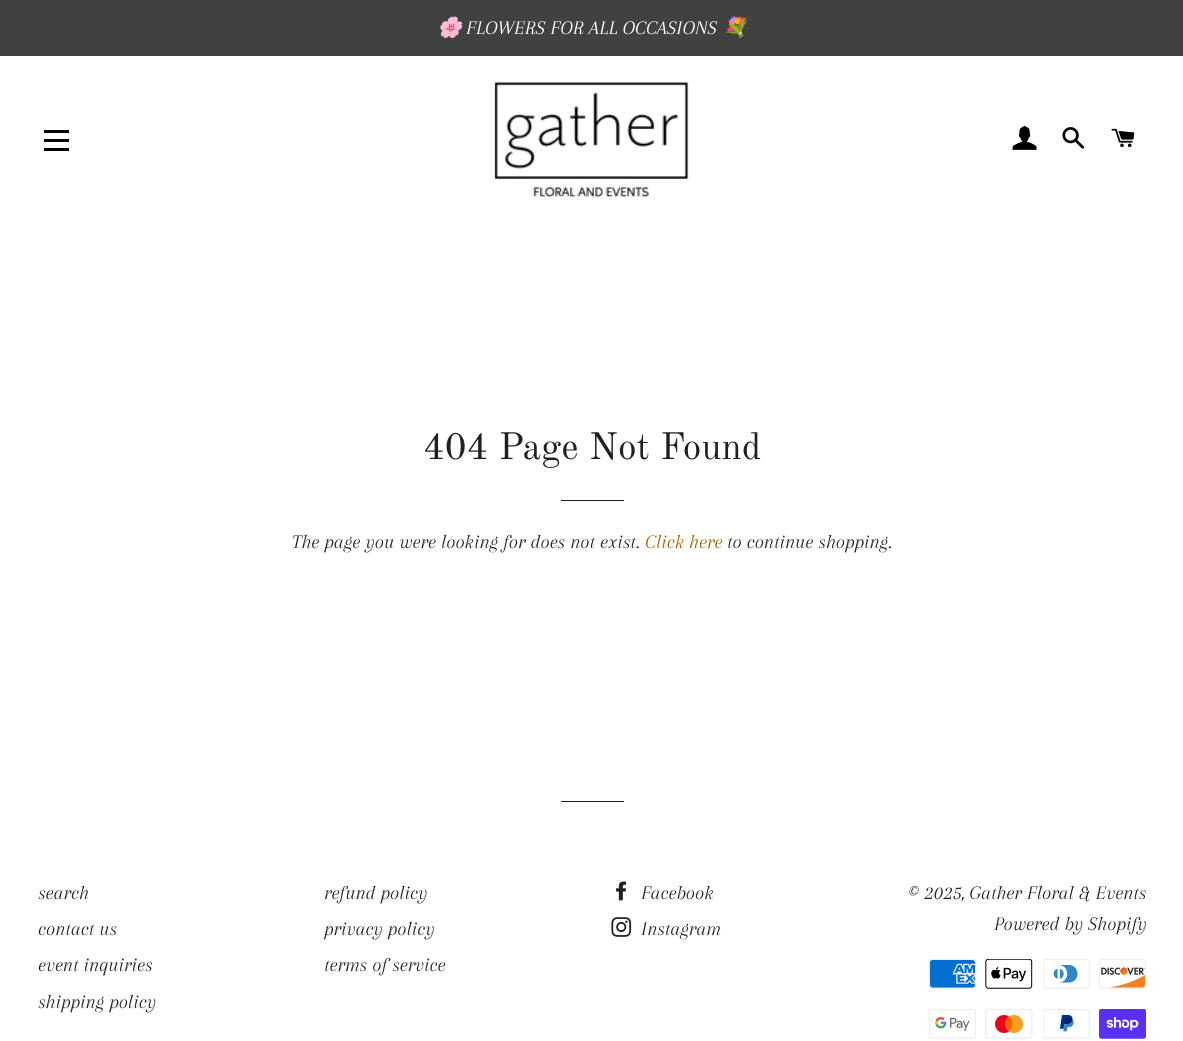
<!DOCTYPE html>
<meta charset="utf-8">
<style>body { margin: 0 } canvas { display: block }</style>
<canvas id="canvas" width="1183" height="1041"></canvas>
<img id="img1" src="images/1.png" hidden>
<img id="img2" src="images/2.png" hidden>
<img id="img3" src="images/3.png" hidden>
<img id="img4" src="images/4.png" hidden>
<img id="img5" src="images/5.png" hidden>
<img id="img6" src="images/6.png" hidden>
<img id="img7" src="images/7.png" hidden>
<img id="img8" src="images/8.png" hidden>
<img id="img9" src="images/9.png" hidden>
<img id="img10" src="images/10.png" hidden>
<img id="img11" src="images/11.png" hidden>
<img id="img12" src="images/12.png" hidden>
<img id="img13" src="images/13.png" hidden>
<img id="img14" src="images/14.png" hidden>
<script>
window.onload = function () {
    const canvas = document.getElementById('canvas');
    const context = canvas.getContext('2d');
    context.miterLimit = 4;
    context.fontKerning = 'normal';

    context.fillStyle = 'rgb(255, 255, 255)';
    context.fillRect(0, 0, 1183, 1041);
    context.fillStyle = 'rgb(64, 66, 66)';
    context.fillRect(0, 0, 1183, 56);
    context.fillStyle = 'rgb(0, 0, 0)';
    context.fillRect(44, 130, 25, 3);
    context.fillRect(44, 139, 25, 3);
    context.fillRect(44, 148, 25, 3);
    context.drawImage(document.getElementById('img1'), 494, 82, 195, 116);
    context.drawImage(document.getElementById('img2'), 1012, 125, 25, 25);
    context.drawImage(document.getElementById('img3'), 1062, 127, 23, 22);
    context.drawImage(document.getElementById('img4'), 1111, 128, 24, 20);
    context.fillStyle = 'rgb(31, 32, 33)';
    context.fillRect(561, 500, 63, 1);
    context.fillRect(561, 801, 63, 1);
    context.drawImage(document.getElementById('img5'), 616, 881, 11, 20);
    context.drawImage(document.getElementById('img6'), 611, 917, 21, 20);
    context.drawImage(document.getElementById('img7'), 929, 959, 47, 30);
    context.drawImage(document.getElementById('img8'), 985, 959, 48, 30);
    context.drawImage(document.getElementById('img9'), 1043, 959, 47, 30);
    context.drawImage(document.getElementById('img10'), 1099, 959, 47, 30);
    context.drawImage(document.getElementById('img11'), 929, 1009, 47, 30);
    context.drawImage(document.getElementById('img12'), 985, 1009, 48, 30);
    context.drawImage(document.getElementById('img13'), 1043, 1009, 47, 30);
    context.drawImage(document.getElementById('img14'), 1099, 1009, 47, 30);
    context.font = 'italic 20px Noto Color Emoji';
    context.fillStyle = 'rgb(255, 255, 255)';
    context.fillText('🌸', 437, 34);
    context.font = 'italic 20px Arapey';
    context.fillText('FLOWERS FOR ALL OCCASIONS', 466, 34);
    context.font = 'italic 20px Noto Color Emoji';
    context.fillText('💐', 722, 34);
    context.font = '37.5px Old Standard TT';
    context.fillStyle = 'rgb(31, 32, 33)';
    context.fillText('404 Page Not Found', 423, 459);
    context.font = 'italic 20px Arapey';
    context.fillText('The page you were looking for does not exist.', 292, 548);
    context.fillStyle = 'rgb(165, 102, 0)';
    context.fillText('Click here', 645, 548);
    context.fillStyle = 'rgb(31, 32, 33)';
    context.fillText('to continue shopping.', 727, 548);
    context.fillText('search', 38, 899);
    context.fillText('contact us', 38, 935);
    context.fillText('event inquiries', 38, 971);
    context.fillText('shipping policy', 38, 1008);
    context.fillText('refund policy', 324, 899);
    context.fillText('privacy policy', 324, 935);
    context.fillText('terms of service', 324, 971);
    context.fillText('Facebook', 641, 899);
    context.fillText('Instagram', 641, 935);
    context.fillText('© 2025, Gather Floral & Events', 908, 899);
    context.fillText('Powered by Shopify', 994, 930);
};
</script>
